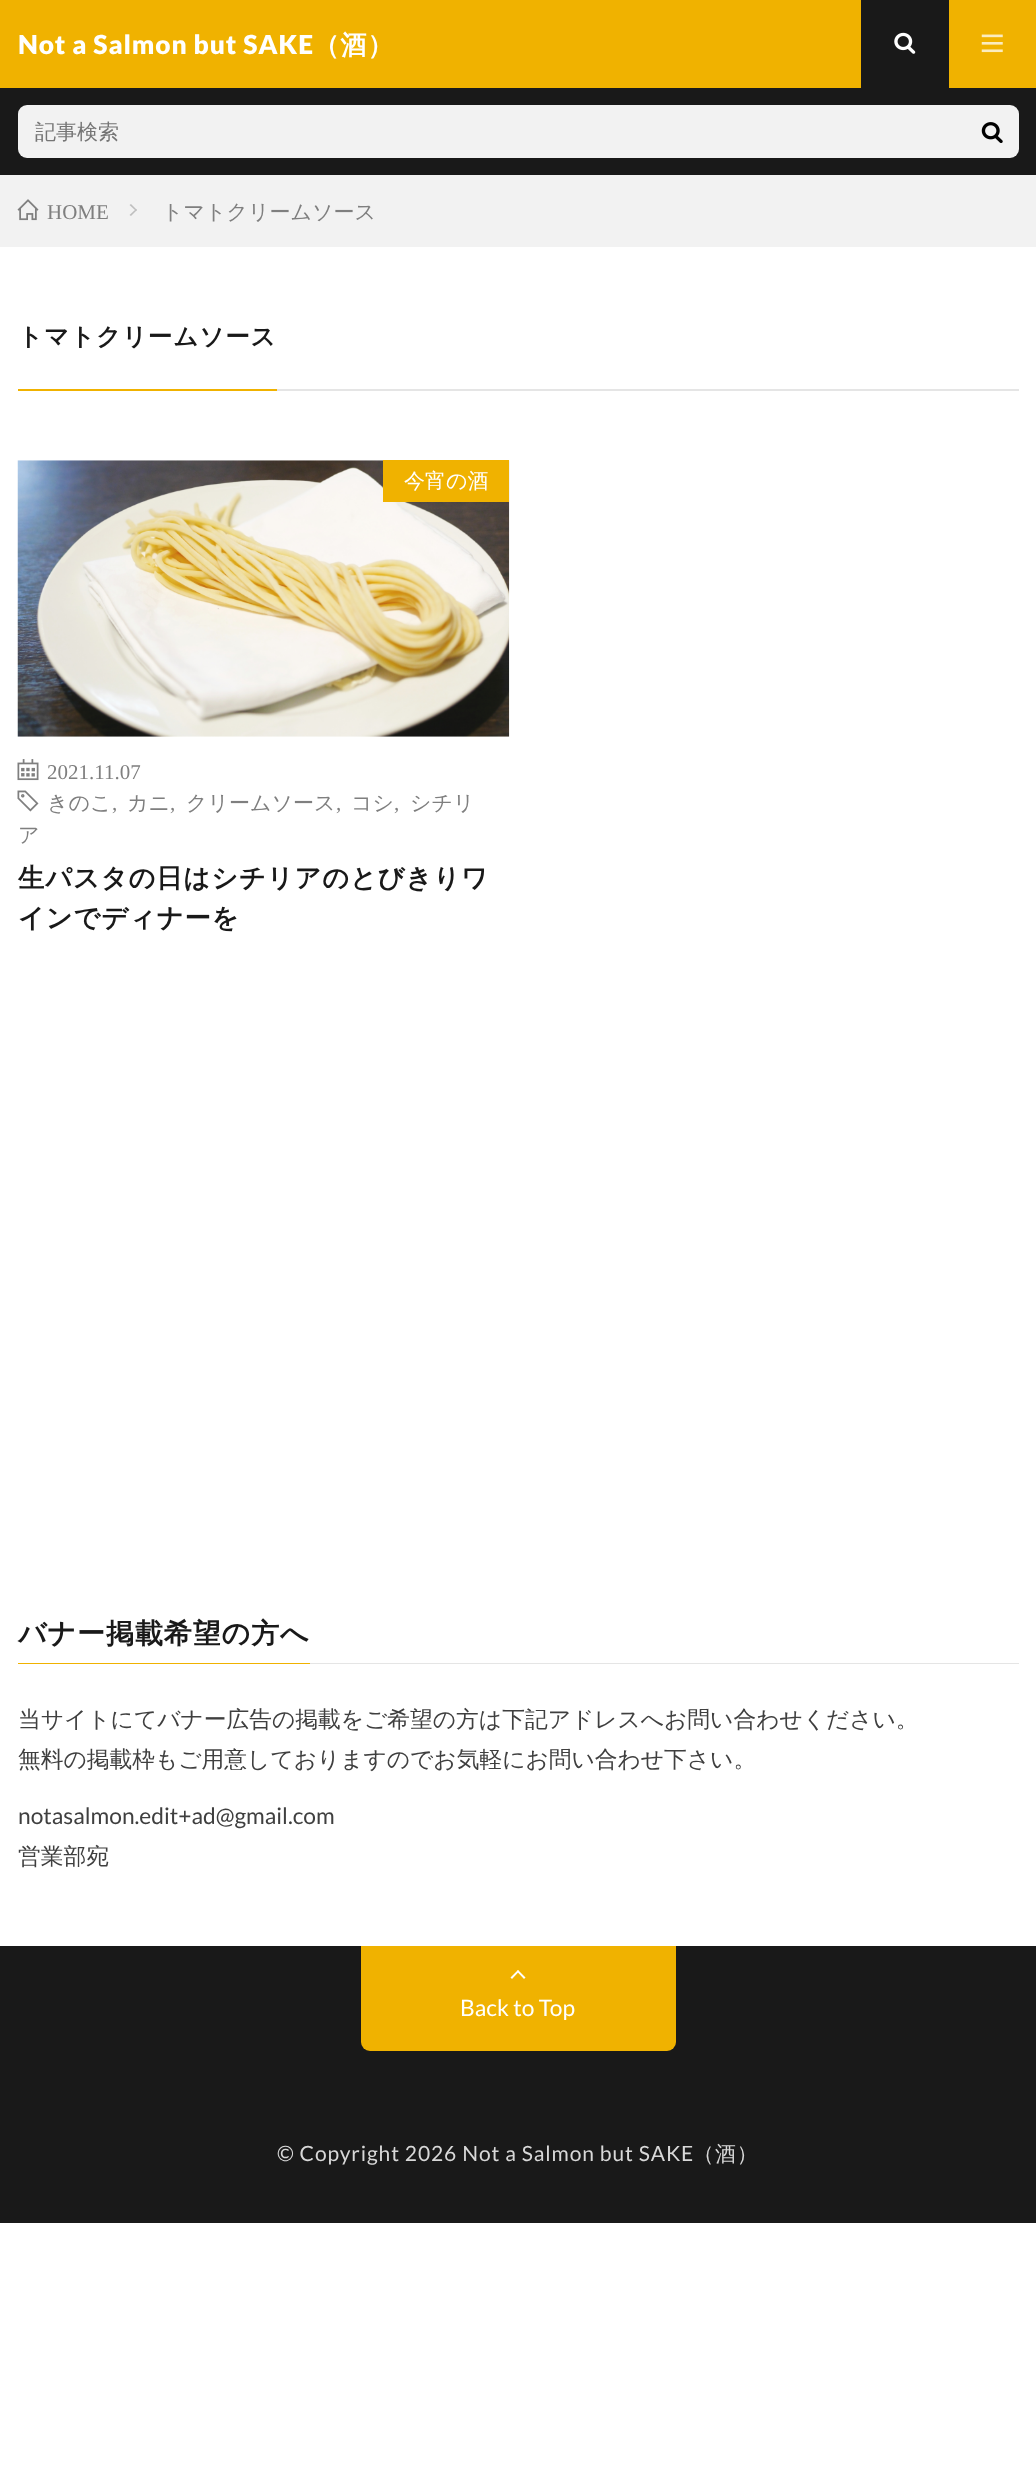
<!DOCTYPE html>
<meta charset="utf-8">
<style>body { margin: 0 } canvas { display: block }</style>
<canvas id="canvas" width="1036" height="2480"></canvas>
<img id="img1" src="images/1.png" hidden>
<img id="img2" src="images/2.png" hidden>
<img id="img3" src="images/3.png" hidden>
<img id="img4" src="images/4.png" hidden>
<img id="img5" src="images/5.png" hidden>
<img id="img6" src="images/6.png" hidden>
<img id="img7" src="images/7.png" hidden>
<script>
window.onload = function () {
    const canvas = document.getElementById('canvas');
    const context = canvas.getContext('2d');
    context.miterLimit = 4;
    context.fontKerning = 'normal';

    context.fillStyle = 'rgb(255, 255, 255)';
    context.fillRect(0, 0, 1036, 2480);
    context.fillStyle = 'rgb(240, 178, 0)';
    context.fillRect(0, 0, 1036, 88);
    context.fillStyle = 'rgb(25, 25, 25)';
    context.fillRect(861, 0, 88, 88);
    context.drawImage(document.getElementById('img1'), 894, 32, 22, 22);
    context.drawImage(document.getElementById('img2'), 981, 34, 22, 19);
    context.fillRect(0, 88, 1036, 87);
    context.fillStyle = 'rgb(242, 242, 242)';
    context.beginPath();
    context.roundRect(18, 105, 1001, 53, 9);
    context.fill();
    context.drawImage(document.getElementById('img3'), 981, 122, 22, 21);
    context.fillRect(0, 175, 1036, 72);
    context.drawImage(document.getElementById('img4'), 17, 199, 22, 22);
    context.fillStyle = 'rgb(191, 191, 191)';
    context.beginPath();
    context.moveTo(131, 204);
    context.lineTo(137, 210);
    context.lineTo(136, 211);
    context.lineTo(129.5, 205);
    context.closePath();
    context.fill();
    context.beginPath();
    context.moveTo(136, 209);
    context.lineTo(137, 210);
    context.lineTo(131, 216);
    context.lineTo(129.5, 215);
    context.closePath();
    context.fill();
    context.fillStyle = 'rgb(240, 178, 0)';
    context.fillRect(18, 389, 259, 2);
    context.fillStyle = 'rgb(229, 229, 229)';
    context.fillRect(277, 389, 742, 2);
    context.drawImage(document.getElementById('img5'), 17, 460, 493, 277);
    context.fillStyle = 'rgb(240, 178, 0)';
    context.fillRect(383, 460, 126, 42);
    context.drawImage(document.getElementById('img6'), 17, 759, 22, 22);
    context.drawImage(document.getElementById('img7'), 17, 790, 22, 22);
    context.fillRect(18, 1663, 292, 1);
    context.fillStyle = 'rgb(229, 229, 229)';
    context.fillRect(310, 1663, 709, 1);
    context.fillStyle = 'rgb(25, 25, 25)';
    context.fillRect(0, 1946, 1036, 277);
    context.fillStyle = 'rgb(240, 178, 0)';
    context.beginPath();
    context.roundRect(361, 1946, 315, 105, [0, 0, 9, 9]);
    context.fill();
    context.fillStyle = 'rgb(255, 255, 255)';
    context.beginPath();
    context.moveTo(518, 1970);
    context.lineTo(525.5, 1977.5);
    context.lineTo(524, 1979);
    context.lineTo(517, 1971.5);
    context.closePath();
    context.fill();
    context.beginPath();
    context.moveTo(518, 1970);
    context.lineTo(519, 1971.5);
    context.lineTo(512, 1979);
    context.lineTo(510.5, 1977.5);
    context.closePath();
    context.fill();
    context.letterSpacing = '0.9px';
    context.font = '900 26.25px Lato';
    context.fillText('Not a Salmon but SAKE', 18, 54);
    context.font = 'bold 26.25px WenQuanYi Zen Hei';
    context.fillText('（酒）', 313, 54);
    context.letterSpacing = '0px';
    context.font = '500 21px WenQuanYi Zen Hei';
    context.fillStyle = 'rgb(117, 117, 117)';
    context.fillText('記事検索', 35, 139);
    context.font = '21px Liberation Serif';
    context.fillStyle = 'rgb(127, 127, 127)';
    context.fillText('HOME', 47, 219);
    context.font = '500 21px WenQuanYi Zen Hei';
    context.fillText('トマトクリームソース', 162, 219);
    context.letterSpacing = '0.9px';
    context.font = 'bold 24.5px WenQuanYi Zen Hei';
    context.fillStyle = 'rgb(25, 25, 25)';
    context.fillText('トマトクリームソース', 18, 345);
    context.letterSpacing = '0px';
    context.font = '500 21px WenQuanYi Zen Hei';
    context.fillStyle = 'rgb(255, 255, 255)';
    context.fillText('今宵の酒', 404, 488);
    context.font = '21px Liberation Serif';
    context.fillStyle = 'rgb(127, 127, 127)';
    context.fillText('2021.11.07', 47, 779);
    context.font = '500 21px WenQuanYi Zen Hei';
    context.fillText('きのこ', 47, 810);
    context.font = '21px Liberation Serif';
    context.fillText(',', 112, 810);
    context.font = '500 21px WenQuanYi Zen Hei';
    context.fillText('カニ', 127, 810);
    context.font = '21px Liberation Serif';
    context.fillText(',', 170, 810);
    context.font = '500 21px WenQuanYi Zen Hei';
    context.fillText('クリームソース', 186, 810);
    context.font = '21px Liberation Serif';
    context.fillText(',', 336, 810);
    context.font = '500 21px WenQuanYi Zen Hei';
    context.fillText('コシ', 351, 810);
    context.font = '21px Liberation Serif';
    context.fillText(',', 394, 810);
    context.font = '500 21px WenQuanYi Zen Hei';
    context.fillText('シチリ', 410, 810);
    context.fillText('ア', 18, 842);
    context.letterSpacing = '0.9px';
    context.font = 'bold 26.25px WenQuanYi Zen Hei';
    context.fillStyle = 'rgb(25, 25, 25)';
    context.fillText('生パスタの日はシチリアのとびきりワ', 18, 887);
    context.fillText('インでディナーを', 18, 927);
    context.font = 'bold 28px WenQuanYi Zen Hei';
    context.fillText('バナー掲載希望の方へ', 18, 1643);
    context.letterSpacing = '0px';
    context.font = '500 22.75px WenQuanYi Zen Hei';
    context.fillStyle = 'rgb(63, 63, 63)';
    context.fillText('当サイトにてバナー広告の掲載をご希望の方は下記アドレスへお問い合わせください。', 18, 1727);
    context.fillText('無料の掲載枠もご用意しておりますのでお気軽にお問い合わせ下さい。', 18, 1767);
    context.font = '22.75px Lato';
    context.fillText('notasalmon.edit+ad@gmail.com', 18, 1824);
    context.font = '500 22.75px WenQuanYi Zen Hei';
    context.fillText('営業部宛', 18, 1864);
    context.font = '22.75px Lato';
    context.fillStyle = 'rgb(255, 255, 255)';
    context.fillText('Back to Top', 460, 2016);
    context.letterSpacing = '0.9px';
    context.font = '21px Lato';
    context.fillStyle = 'rgb(216, 216, 216)';
    context.fillText('© Copyright 2026 Not a Salmon but SAKE', 277, 2161);
    context.font = '500 21px WenQuanYi Zen Hei';
    context.fillText('（酒）', 693, 2161);
};
</script>
